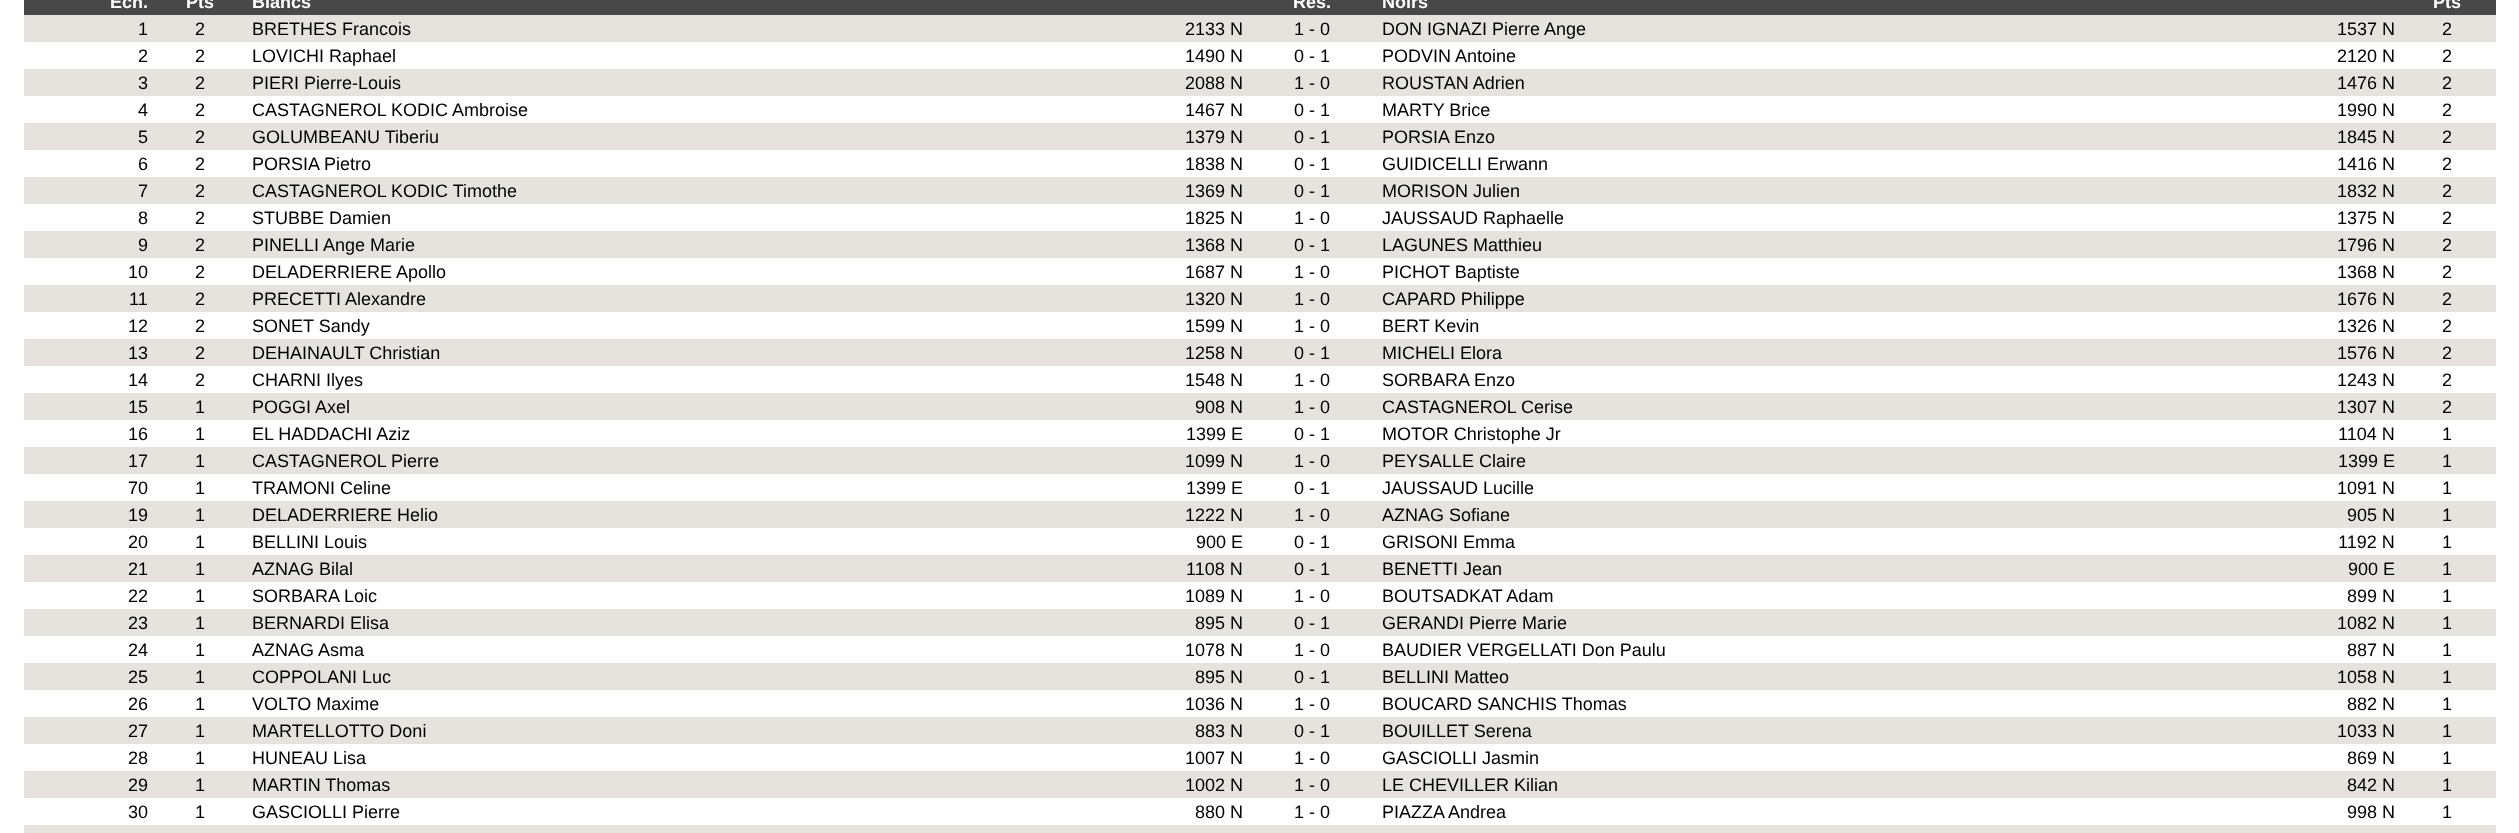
<!DOCTYPE html>
<meta charset="utf-8">
<style>body { margin: 0 } canvas { display: block }</style>
<canvas id="canvas" width="2519" height="833"></canvas>
<script>
window.onload = function () {
    const canvas = document.getElementById('canvas');
    const context = canvas.getContext('2d');
    context.miterLimit = 4;
    context.fontKerning = 'normal';

    context.fillStyle = 'rgb(255, 255, 255)';
    context.fillRect(0, 0, 2519, 833);
    context.fillStyle = 'rgb(72, 72, 72)';
    context.fillRect(24, 0, 2472, 15);
    context.fillStyle = 'rgb(230, 227, 222)';
    context.fillRect(24, 15, 2472, 27);
    context.fillRect(24, 69, 2472, 27);
    context.fillRect(24, 123, 2472, 27);
    context.fillRect(24, 177, 2472, 27);
    context.fillRect(24, 231, 2472, 27);
    context.fillRect(24, 285, 2472, 27);
    context.fillRect(24, 339, 2472, 27);
    context.fillRect(24, 393, 2472, 27);
    context.fillRect(24, 447, 2472, 27);
    context.fillRect(24, 501, 2472, 27);
    context.fillRect(24, 555, 2472, 27);
    context.fillRect(24, 609, 2472, 27);
    context.fillRect(24, 663, 2472, 27);
    context.fillRect(24, 717, 2472, 27);
    context.fillRect(24, 771, 2472, 27);
    context.fillRect(24, 825, 2472, 8);
    context.font = 'bold 18px Liberation Sans';
    context.fillStyle = 'rgb(255, 255, 255)';
    context.fillText('Ech.', 110, 8);
    context.fillText('Pts', 186, 8);
    context.fillText('Blancs', 252, 8);
    context.fillText('Res.', 1293, 8);
    context.fillText('Noirs', 1382, 8);
    context.fillText('Pts', 2433, 8);
    context.font = '18px Liberation Sans';
    context.fillStyle = 'rgb(0, 0, 0)';
    context.fillText('1', 138, 35);
    context.fillText('2', 195, 35);
    context.fillText('BRETHES Francois', 252, 35);
    context.fillText('2133 N', 1185, 35);
    context.fillText('1 - 0', 1294, 35);
    context.fillText('DON IGNAZI Pierre Ange', 1382, 35);
    context.fillText('1537 N', 2337, 35);
    context.fillText('2', 2442, 35);
    context.fillText('2', 138, 62);
    context.fillText('2', 195, 62);
    context.fillText('LOVICHI Raphael', 252, 62);
    context.fillText('1490 N', 1185, 62);
    context.fillText('0 - 1', 1294, 62);
    context.fillText('PODVIN Antoine', 1382, 62);
    context.fillText('2120 N', 2337, 62);
    context.fillText('2', 2442, 62);
    context.fillText('3', 138, 89);
    context.fillText('2', 195, 89);
    context.fillText('PIERI Pierre-Louis', 252, 89);
    context.fillText('2088 N', 1185, 89);
    context.fillText('1 - 0', 1294, 89);
    context.fillText('ROUSTAN Adrien', 1382, 89);
    context.fillText('1476 N', 2337, 89);
    context.fillText('2', 2442, 89);
    context.fillText('4', 138, 116);
    context.fillText('2', 195, 116);
    context.fillText('CASTAGNEROL KODIC Ambroise', 252, 116);
    context.fillText('1467 N', 1185, 116);
    context.fillText('0 - 1', 1294, 116);
    context.fillText('MARTY Brice', 1382, 116);
    context.fillText('1990 N', 2337, 116);
    context.fillText('2', 2442, 116);
    context.fillText('5', 138, 143);
    context.fillText('2', 195, 143);
    context.fillText('GOLUMBEANU Tiberiu', 252, 143);
    context.fillText('1379 N', 1185, 143);
    context.fillText('0 - 1', 1294, 143);
    context.fillText('PORSIA Enzo', 1382, 143);
    context.fillText('1845 N', 2337, 143);
    context.fillText('2', 2442, 143);
    context.fillText('6', 138, 170);
    context.fillText('2', 195, 170);
    context.fillText('PORSIA Pietro', 252, 170);
    context.fillText('1838 N', 1185, 170);
    context.fillText('0 - 1', 1294, 170);
    context.fillText('GUIDICELLI Erwann', 1382, 170);
    context.fillText('1416 N', 2337, 170);
    context.fillText('2', 2442, 170);
    context.fillText('7', 138, 197);
    context.fillText('2', 195, 197);
    context.fillText('CASTAGNEROL KODIC Timothe', 252, 197);
    context.fillText('1369 N', 1185, 197);
    context.fillText('0 - 1', 1294, 197);
    context.fillText('MORISON Julien', 1382, 197);
    context.fillText('1832 N', 2337, 197);
    context.fillText('2', 2442, 197);
    context.fillText('8', 138, 224);
    context.fillText('2', 195, 224);
    context.fillText('STUBBE Damien', 252, 224);
    context.fillText('1825 N', 1185, 224);
    context.fillText('1 - 0', 1294, 224);
    context.fillText('JAUSSAUD Raphaelle', 1382, 224);
    context.fillText('1375 N', 2337, 224);
    context.fillText('2', 2442, 224);
    context.fillText('9', 138, 251);
    context.fillText('2', 195, 251);
    context.fillText('PINELLI Ange Marie', 252, 251);
    context.fillText('1368 N', 1185, 251);
    context.fillText('0 - 1', 1294, 251);
    context.fillText('LAGUNES Matthieu', 1382, 251);
    context.fillText('1796 N', 2337, 251);
    context.fillText('2', 2442, 251);
    context.fillText('10', 128, 278);
    context.fillText('2', 195, 278);
    context.fillText('DELADERRIERE Apollo', 252, 278);
    context.fillText('1687 N', 1185, 278);
    context.fillText('1 - 0', 1294, 278);
    context.fillText('PICHOT Baptiste', 1382, 278);
    context.fillText('1368 N', 2337, 278);
    context.fillText('2', 2442, 278);
    context.fillText('11', 129, 305);
    context.fillText('2', 195, 305);
    context.fillText('PRECETTI Alexandre', 252, 305);
    context.fillText('1320 N', 1185, 305);
    context.fillText('1 - 0', 1294, 305);
    context.fillText('CAPARD Philippe', 1382, 305);
    context.fillText('1676 N', 2337, 305);
    context.fillText('2', 2442, 305);
    context.fillText('12', 128, 332);
    context.fillText('2', 195, 332);
    context.fillText('SONET Sandy', 252, 332);
    context.fillText('1599 N', 1185, 332);
    context.fillText('1 - 0', 1294, 332);
    context.fillText('BERT Kevin', 1382, 332);
    context.fillText('1326 N', 2337, 332);
    context.fillText('2', 2442, 332);
    context.fillText('13', 128, 359);
    context.fillText('2', 195, 359);
    context.fillText('DEHAINAULT Christian', 252, 359);
    context.fillText('1258 N', 1185, 359);
    context.fillText('0 - 1', 1294, 359);
    context.fillText('MICHELI Elora', 1382, 359);
    context.fillText('1576 N', 2337, 359);
    context.fillText('2', 2442, 359);
    context.fillText('14', 128, 386);
    context.fillText('2', 195, 386);
    context.fillText('CHARNI Ilyes', 252, 386);
    context.fillText('1548 N', 1185, 386);
    context.fillText('1 - 0', 1294, 386);
    context.fillText('SORBARA Enzo', 1382, 386);
    context.fillText('1243 N', 2337, 386);
    context.fillText('2', 2442, 386);
    context.fillText('15', 128, 413);
    context.fillText('1', 195, 413);
    context.fillText('POGGI Axel', 252, 413);
    context.fillText('908 N', 1195, 413);
    context.fillText('1 - 0', 1294, 413);
    context.fillText('CASTAGNEROL Cerise', 1382, 413);
    context.fillText('1307 N', 2337, 413);
    context.fillText('2', 2442, 413);
    context.fillText('16', 128, 440);
    context.fillText('1', 195, 440);
    context.fillText('EL HADDACHI Aziz', 252, 440);
    context.fillText('1399 E', 1186, 440);
    context.fillText('0 - 1', 1294, 440);
    context.fillText('MOTOR Christophe Jr', 1382, 440);
    context.fillText('1104 N', 2338, 440);
    context.fillText('1', 2442, 440);
    context.fillText('17', 128, 467);
    context.fillText('1', 195, 467);
    context.fillText('CASTAGNEROL Pierre', 252, 467);
    context.fillText('1099 N', 1185, 467);
    context.fillText('1 - 0', 1294, 467);
    context.fillText('PEYSALLE Claire', 1382, 467);
    context.fillText('1399 E', 2338, 467);
    context.fillText('1', 2442, 467);
    context.fillText('70', 128, 494);
    context.fillText('1', 195, 494);
    context.fillText('TRAMONI Celine', 252, 494);
    context.fillText('1399 E', 1186, 494);
    context.fillText('0 - 1', 1294, 494);
    context.fillText('JAUSSAUD Lucille', 1382, 494);
    context.fillText('1091 N', 2337, 494);
    context.fillText('1', 2442, 494);
    context.fillText('19', 128, 521);
    context.fillText('1', 195, 521);
    context.fillText('DELADERRIERE Helio', 252, 521);
    context.fillText('1222 N', 1185, 521);
    context.fillText('1 - 0', 1294, 521);
    context.fillText('AZNAG Sofiane', 1382, 521);
    context.fillText('905 N', 2347, 521);
    context.fillText('1', 2442, 521);
    context.fillText('20', 128, 548);
    context.fillText('1', 195, 548);
    context.fillText('BELLINI Louis', 252, 548);
    context.fillText('900 E', 1196, 548);
    context.fillText('0 - 1', 1294, 548);
    context.fillText('GRISONI Emma', 1382, 548);
    context.fillText('1192 N', 2338, 548);
    context.fillText('1', 2442, 548);
    context.fillText('21', 128, 575);
    context.fillText('1', 195, 575);
    context.fillText('AZNAG Bilal', 252, 575);
    context.fillText('1108 N', 1186, 575);
    context.fillText('0 - 1', 1294, 575);
    context.fillText('BENETTI Jean', 1382, 575);
    context.fillText('900 E', 2348, 575);
    context.fillText('1', 2442, 575);
    context.fillText('22', 128, 602);
    context.fillText('1', 195, 602);
    context.fillText('SORBARA Loic', 252, 602);
    context.fillText('1089 N', 1185, 602);
    context.fillText('1 - 0', 1294, 602);
    context.fillText('BOUTSADKAT Adam', 1382, 602);
    context.fillText('899 N', 2347, 602);
    context.fillText('1', 2442, 602);
    context.fillText('23', 128, 629);
    context.fillText('1', 195, 629);
    context.fillText('BERNARDI Elisa', 252, 629);
    context.fillText('895 N', 1195, 629);
    context.fillText('0 - 1', 1294, 629);
    context.fillText('GERANDI Pierre Marie', 1382, 629);
    context.fillText('1082 N', 2337, 629);
    context.fillText('1', 2442, 629);
    context.fillText('24', 128, 656);
    context.fillText('1', 195, 656);
    context.fillText('AZNAG Asma', 252, 656);
    context.fillText('1078 N', 1185, 656);
    context.fillText('1 - 0', 1294, 656);
    context.fillText('BAUDIER VERGELLATI Don Paulu', 1382, 656);
    context.fillText('887 N', 2347, 656);
    context.fillText('1', 2442, 656);
    context.fillText('25', 128, 683);
    context.fillText('1', 195, 683);
    context.fillText('COPPOLANI Luc', 252, 683);
    context.fillText('895 N', 1195, 683);
    context.fillText('0 - 1', 1294, 683);
    context.fillText('BELLINI Matteo', 1382, 683);
    context.fillText('1058 N', 2337, 683);
    context.fillText('1', 2442, 683);
    context.fillText('26', 128, 710);
    context.fillText('1', 195, 710);
    context.fillText('VOLTO Maxime', 252, 710);
    context.fillText('1036 N', 1185, 710);
    context.fillText('1 - 0', 1294, 710);
    context.fillText('BOUCARD SANCHIS Thomas', 1382, 710);
    context.fillText('882 N', 2347, 710);
    context.fillText('1', 2442, 710);
    context.fillText('27', 128, 737);
    context.fillText('1', 195, 737);
    context.fillText('MARTELLOTTO Doni', 252, 737);
    context.fillText('883 N', 1195, 737);
    context.fillText('0 - 1', 1294, 737);
    context.fillText('BOUILLET Serena', 1382, 737);
    context.fillText('1033 N', 2337, 737);
    context.fillText('1', 2442, 737);
    context.fillText('28', 128, 764);
    context.fillText('1', 195, 764);
    context.fillText('HUNEAU Lisa', 252, 764);
    context.fillText('1007 N', 1185, 764);
    context.fillText('1 - 0', 1294, 764);
    context.fillText('GASCIOLLI Jasmin', 1382, 764);
    context.fillText('869 N', 2347, 764);
    context.fillText('1', 2442, 764);
    context.fillText('29', 128, 791);
    context.fillText('1', 195, 791);
    context.fillText('MARTIN Thomas', 252, 791);
    context.fillText('1002 N', 1185, 791);
    context.fillText('1 - 0', 1294, 791);
    context.fillText('LE CHEVILLER Kilian', 1382, 791);
    context.fillText('842 N', 2347, 791);
    context.fillText('1', 2442, 791);
    context.fillText('30', 128, 818);
    context.fillText('1', 195, 818);
    context.fillText('GASCIOLLI Pierre', 252, 818);
    context.fillText('880 N', 1195, 818);
    context.fillText('1 - 0', 1294, 818);
    context.fillText('PIAZZA Andrea', 1382, 818);
    context.fillText('998 N', 2347, 818);
    context.fillText('1', 2442, 818);
};
</script>
